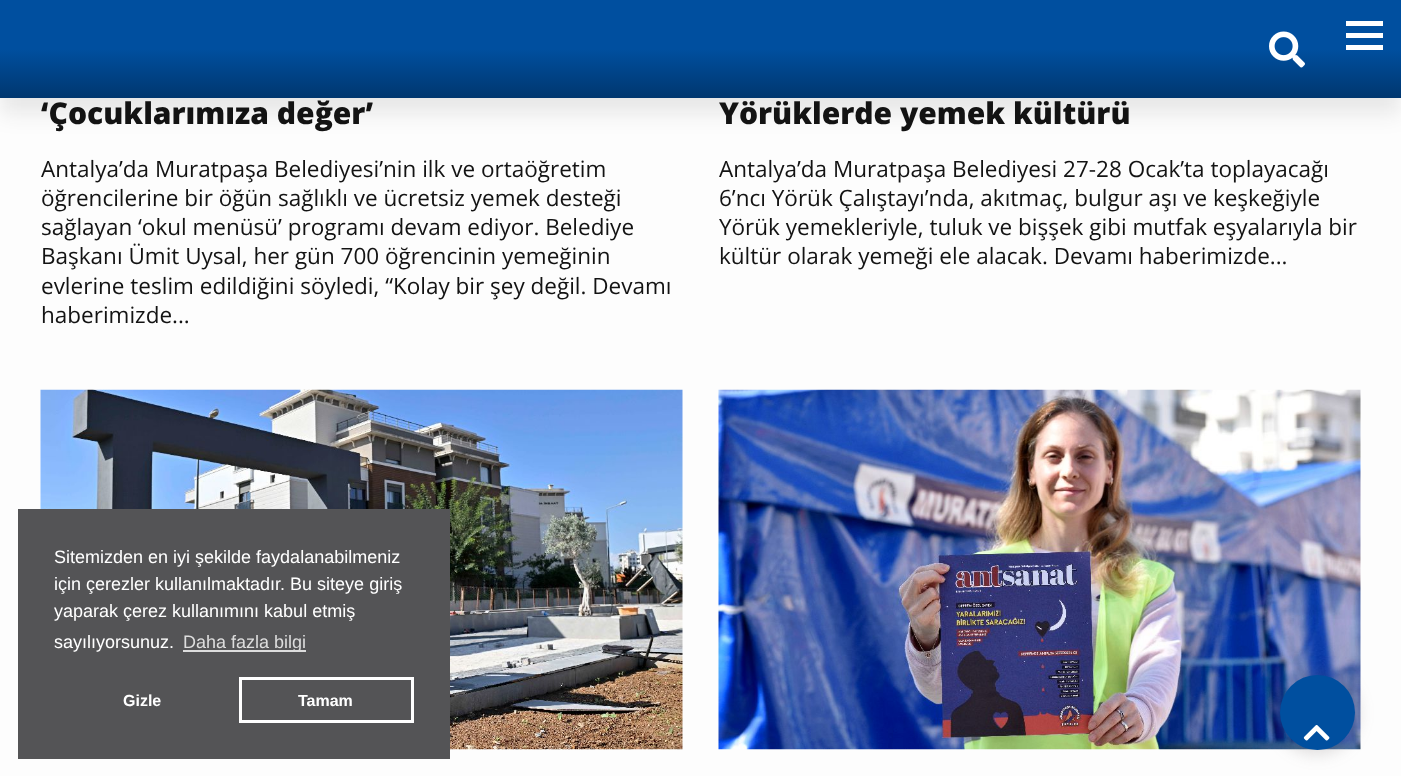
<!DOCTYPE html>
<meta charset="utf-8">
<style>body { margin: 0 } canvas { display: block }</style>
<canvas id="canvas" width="1401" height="776"></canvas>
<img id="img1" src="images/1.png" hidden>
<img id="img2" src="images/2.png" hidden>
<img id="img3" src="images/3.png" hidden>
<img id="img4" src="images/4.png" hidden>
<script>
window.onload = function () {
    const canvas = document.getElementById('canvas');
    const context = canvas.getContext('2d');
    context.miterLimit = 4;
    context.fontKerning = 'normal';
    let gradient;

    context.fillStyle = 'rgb(253, 253, 253)';
    context.fillRect(0, 0, 1401, 776);
    context.fillStyle = 'rgba(25, 25, 25, 0.1)';
    context.filter = 'blur(11px)';
    context.beginPath();
    context.rect(0, 15, 1401, 98);
    context.fill();
    context.filter = 'none';
    gradient = context.createLinearGradient(701, 98, 701, 0);
    gradient.addColorStop(0, 'rgb(2, 0, 36)');
    gradient.addColorStop(0, 'rgb(0, 55, 111)');
    gradient.addColorStop(0.5, 'rgb(0, 79, 159)');
    context.fillStyle = gradient;
    context.fillRect(0, 0, 1401, 98);
    context.drawImage(document.getElementById('img1'), 1269, 31, 36, 37);
    context.fillStyle = 'rgb(255, 255, 255)';
    context.fillRect(1346, 21, 37, 5);
    context.fillRect(1346, 33, 37, 5);
    context.fillRect(1346, 45, 37, 5);
    context.drawImage(document.getElementById('img2'), 40, 389, 643, 361);
    context.drawImage(document.getElementById('img3'), 718, 389, 643, 361);
    context.fillStyle = 'rgb(84, 84, 86)';
    context.fillRect(18, 509, 432, 250);
    context.fillStyle = 'rgb(221, 221, 221)';
    context.fillRect(183, 650, 123, 2);
    context.strokeStyle = 'rgb(255, 255, 255)';
    context.lineWidth = 3;
    context.strokeRect(240.5, 678.5, 172, 43);
    context.fillStyle = 'rgba(108, 98, 98, 0.2)';
    context.filter = 'blur(7.5px)';
    context.beginPath();
    context.roundRect(1275, 671, 84, 84, 42);
    context.fill();
    context.filter = 'none';
    context.fillStyle = 'rgb(0, 79, 159)';
    context.beginPath();
    context.arc(1317.5, 712.5, 37.5, 0, 2 * Math.PI);
    context.fill();
    context.drawImage(document.getElementById('img4'), 1303, 725, 27, 16);
    context.font = '800 30px Open Sans';
    context.fillStyle = 'rgb(19, 19, 19)';
    context.fillText('‘Çocuklarımıza değer’', 41, 124);
    context.font = '22.5px Open Sans';
    context.fillText('Antalya’da Muratpaşa Belediyesi’nin ilk ve ortaöğretim', 41, 177);
    context.fillText('öğrencilerine bir öğün sağlıklı ve ücretsiz yemek desteği', 41, 206);
    context.fillText('sağlayan ‘okul menüsü’ programı devam ediyor. Belediye', 41, 235);
    context.fillText('Başkanı Ümit Uysal, her gün 700 öğrencinin yemeğinin', 41, 264);
    context.fillText('evlerine teslim edildiğini söyledi, “Kolay bir şey değil. Devamı', 41, 294);
    context.fillText('haberimizde...', 41, 323);
    context.font = '800 30px Open Sans';
    context.fillText('Yörüklerde yemek kültürü', 719, 124);
    context.font = '22.5px Open Sans';
    context.fillText('Antalya’da Muratpaşa Belediyesi 27-28 Ocak’ta toplayacağı', 719, 177);
    context.fillText('6’ncı Yörük Çalıştayı’nda, akıtmaç, bulgur aşı ve keşkeğiyle', 719, 206);
    context.fillText('Yörük yemekleriyle, tuluk ve bişşek gibi mutfak eşyalarıyla bir', 719, 235);
    context.fillText('kültür olarak yemeği ele alacak. Devamı haberimizde...', 719, 264);
    context.font = '18px Liberation Sans';
    context.fillStyle = 'rgb(255, 255, 255)';
    context.fillText('Sitemizden en iyi şekilde faydalanabilmeniz', 54, 563);
    context.fillText('için çerezler kullanılmaktadır. Bu siteye giriş', 54, 590);
    context.fillText('yaparak çerez kullanımını kabul etmiş', 54, 617);
    context.fillText('sayılıyorsunuz.', 54, 648);
    context.fillStyle = 'rgb(221, 221, 221)';
    context.fillText('Daha fazla bilgi', 183, 648);
    context.font = 'bold 16px Liberation Sans';
    context.fillStyle = 'rgb(255, 255, 255)';
    context.fillText('Gizle', 123, 706);
    context.fillText('Tamam', 298, 706);
};
</script>
